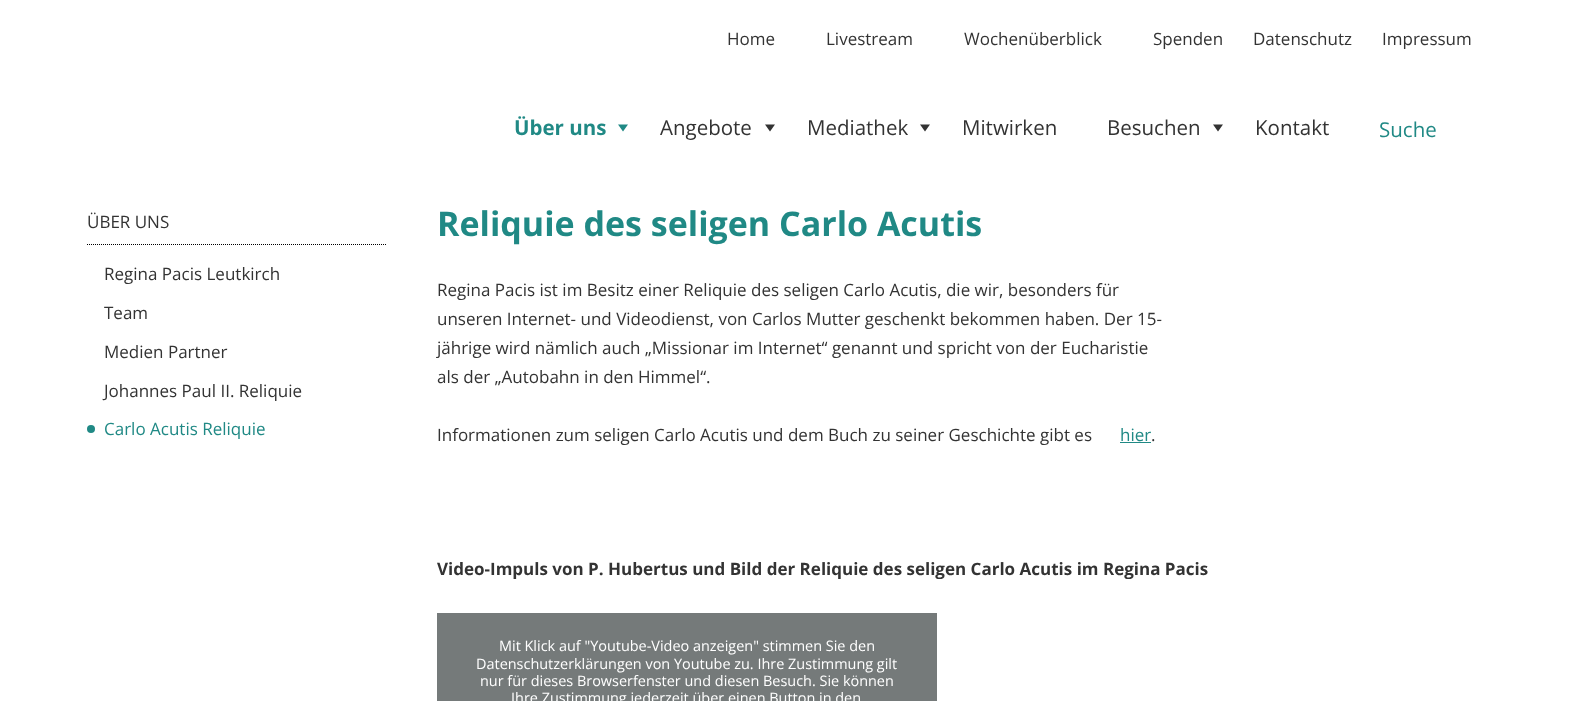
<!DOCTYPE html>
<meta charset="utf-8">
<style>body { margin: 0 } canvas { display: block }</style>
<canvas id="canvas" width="1573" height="701"></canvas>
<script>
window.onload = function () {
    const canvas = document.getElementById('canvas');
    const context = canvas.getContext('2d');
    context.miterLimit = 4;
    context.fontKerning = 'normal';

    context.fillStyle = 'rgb(255, 255, 255)';
    context.fillRect(0, 0, 1573, 701);
    context.fillStyle = 'rgb(32, 137, 133)';
    context.beginPath();
    context.moveTo(618, 124.5);
    context.lineTo(628, 124.5);
    context.lineTo(623, 131.5);
    context.closePath();
    context.fill();
    context.fillStyle = 'rgb(51, 51, 51)';
    context.beginPath();
    context.moveTo(765, 124.5);
    context.lineTo(775, 124.5);
    context.lineTo(770, 131.5);
    context.closePath();
    context.fill();
    context.beginPath();
    context.moveTo(920, 124.5);
    context.lineTo(930, 124.5);
    context.lineTo(925, 131.5);
    context.closePath();
    context.fill();
    context.beginPath();
    context.moveTo(1213, 124.5);
    context.lineTo(1223, 124.5);
    context.lineTo(1218, 131.5);
    context.closePath();
    context.fill();
    context.beginPath();
    context.moveTo(87, 244.5);
    context.lineTo(387, 244.5);
    context.strokeStyle = 'rgb(0, 0, 0)';
    context.setLineDash([1, 1]);
    context.stroke();
    context.fillStyle = 'rgb(32, 137, 133)';
    context.beginPath();
    context.arc(91, 429, 4, 0, 2 * Math.PI);
    context.fill();
    context.fillRect(1120, 442, 31, 1);
    context.fillStyle = 'rgb(117, 122, 122)';
    context.fillRect(437, 613, 500, 88);
    context.font = '17px Open Sans';
    context.fillStyle = 'rgb(51, 51, 51)';
    context.fillText('Home', 727, 45);
    context.fillText('Livestream', 826, 45);
    context.fillText('Wochenüberblick', 964, 45);
    context.fillText('Spenden', 1153, 45);
    context.fillText('Datenschutz', 1253, 45);
    context.fillText('Impressum', 1382, 45);
    context.font = 'bold 20.5px Open Sans';
    context.fillStyle = 'rgb(32, 137, 133)';
    context.fillText('Über uns', 514, 135);
    context.font = '20.5px Open Sans';
    context.fillStyle = 'rgb(51, 51, 51)';
    context.fillText('Angebote', 660, 135);
    context.fillText('Mediathek', 807, 135);
    context.fillText('Mitwirken', 962, 135);
    context.fillText('Besuchen', 1107, 135);
    context.fillText('Kontakt', 1255, 135);
    context.fillStyle = 'rgb(32, 137, 133)';
    context.fillText('Suche', 1379, 137);
    context.font = '17px Open Sans';
    context.fillStyle = 'rgb(51, 51, 51)';
    context.fillText('ÜBER UNS', 87, 228);
    context.fillText('Regina Pacis Leutkirch', 104, 280);
    context.fillText('Team', 104, 319);
    context.fillText('Medien Partner', 104, 358);
    context.fillText('Johannes Paul II. Reliquie', 104, 397);
    context.fillStyle = 'rgb(32, 137, 133)';
    context.fillText('Carlo Acutis Reliquie', 104, 435);
    context.font = 'bold 34px Open Sans';
    context.fillText('Reliquie des seligen Carlo Acutis', 437, 236);
    context.font = '17px Open Sans';
    context.fillStyle = 'rgb(51, 51, 51)';
    context.fillText('Regina Pacis ist im Besitz einer Reliquie des seligen Carlo Acutis, die wir, besonders für', 437, 296);
    context.fillText('unseren Internet- und Videodienst, von Carlos Mutter geschenkt bekommen haben. Der 15-', 437, 325);
    context.fillText('jährige wird nämlich auch „Missionar im Internet“ genannt und spricht von der Eucharistie', 437, 354);
    context.fillText('als der „Autobahn in den Himmel“.', 437, 383);
    context.fillText('Informationen zum seligen Carlo Acutis und dem Buch zu seiner Geschichte gibt es', 437, 441);
    context.fillStyle = 'rgb(32, 137, 133)';
    context.fillText('hier', 1120, 441);
    context.fillStyle = 'rgb(51, 51, 51)';
    context.fillText('.', 1151, 441);
    context.font = 'bold 17px Open Sans';
    context.fillText('Video-Impuls von P. Hubertus und Bild der Reliquie des seligen Carlo Acutis im Regina Pacis', 437, 575);
    context.font = '14.45px Open Sans';
    context.fillStyle = 'rgb(255, 255, 255)';
    context.fillText('Mit Klick auf "Youtube-Video anzeigen" stimmen Sie den', 499, 651);
    context.fillText('Datenschutzerklärungen von Youtube zu. Ihre Zustimmung gilt', 476, 669);
    context.fillText('nur für dieses Browserfenster und diesen Besuch. Sie können', 480, 686);
    context.fillText('Ihre Zustimmung jederzeit über einen Button in den', 511, 703);
};
</script>
